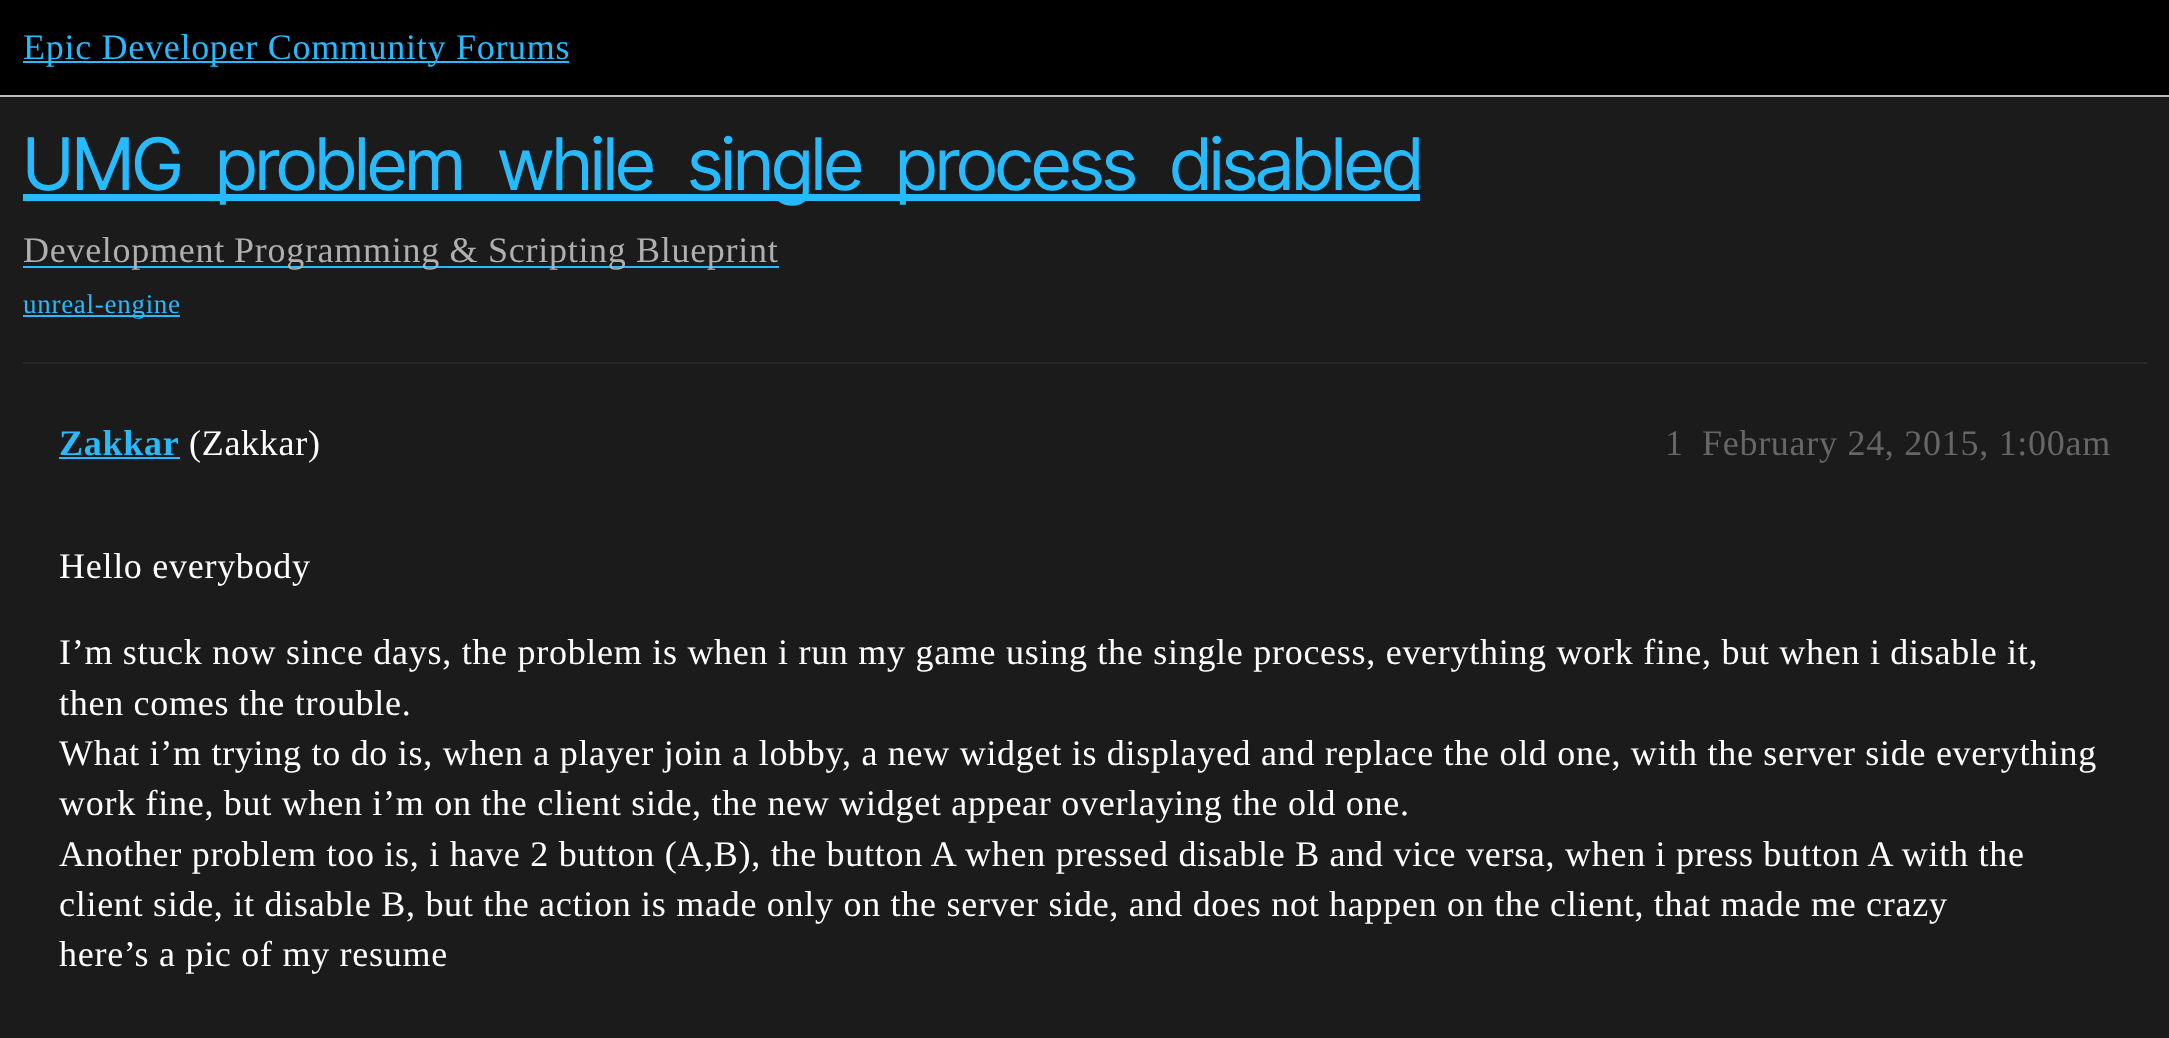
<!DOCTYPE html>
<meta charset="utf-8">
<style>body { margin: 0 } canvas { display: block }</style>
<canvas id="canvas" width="2169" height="1038"></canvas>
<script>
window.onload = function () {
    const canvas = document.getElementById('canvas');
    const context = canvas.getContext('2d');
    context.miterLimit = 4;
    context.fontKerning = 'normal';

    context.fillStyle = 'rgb(27, 27, 27)';
    context.fillRect(0, 0, 2169, 1038);
    context.fillStyle = 'rgb(0, 0, 0)';
    context.fillRect(0, 0, 2169, 95);
    context.fillStyle = 'rgb(189, 189, 189)';
    context.fillRect(0, 95, 2169, 2);
    context.fillStyle = 'rgb(38, 187, 255)';
    context.fillRect(23, 61, 546, 2);
    context.fillRect(23, 194, 1397, 7);
    context.fillRect(23, 266, 756, 2);
    context.fillRect(23, 315, 157, 2);
    context.fillStyle = 'rgb(40, 40, 44)';
    context.fillRect(23, 362, 2124, 2);
    context.fillStyle = 'rgb(38, 187, 255)';
    context.fillRect(59, 457, 121, 2);
    context.letterSpacing = '0.72px';
    context.font = '36px Liberation Serif';
    context.fillText('Epic Developer Community Forums', 23, 59);
    context.letterSpacing = '-1.1px';
    context.wordSpacing = '18.5px';
    context.font = '72.4px Inter Tight';
    context.fillText('UMG problem while single process disabled', 23, 190);
    context.letterSpacing = '0.72px';
    context.wordSpacing = '0px';
    context.font = '36px Liberation Serif';
    context.fillStyle = 'rgb(175, 175, 176)';
    context.fillText('Development', 23, 262);
    context.fillText('Programming & Scripting', 234, 262);
    context.fillText('Blueprint', 636, 262);
    context.font = '27px Liberation Serif';
    context.fillStyle = 'rgb(38, 187, 255)';
    context.fillText('unreal-engine', 23, 313);
    context.font = 'bold 36px Liberation Serif';
    context.fillText('Zakkar', 59, 455);
    context.font = '36px Liberation Serif';
    context.fillStyle = 'rgb(255, 255, 255)';
    context.fillText('(Zakkar)', 189, 455);
    context.fillStyle = 'rgb(102, 102, 102)';
    context.fillText('1', 1665, 455);
    context.fillText('February 24, 2015, 1:00am', 1702, 455);
    context.fillStyle = 'rgb(255, 255, 255)';
    context.fillText('Hello everybody', 59, 578);
    context.fillText('I’m stuck now since days, the problem is when i run my game using the single process, everything work fine, but when i disable it,', 59, 664);
    context.fillText('then comes the trouble.', 59, 715);
    context.fillText('What i’m trying to do is, when a player join a lobby, a new widget is displayed and replace the old one, with the server side everything', 59, 765);
    context.fillText('work fine, but when i’m on the client side, the new widget appear overlaying the old one.', 59, 815);
    context.fillText('Another problem too is, i have 2 button (A,B), the button A when pressed disable B and vice versa, when i press button A with the', 59, 866);
    context.fillText('client side, it disable B, but the action is made only on the server side, and does not happen on the client, that made me crazy', 59, 916);
    context.fillText('here’s a pic of my resume', 59, 966);
};
</script>
